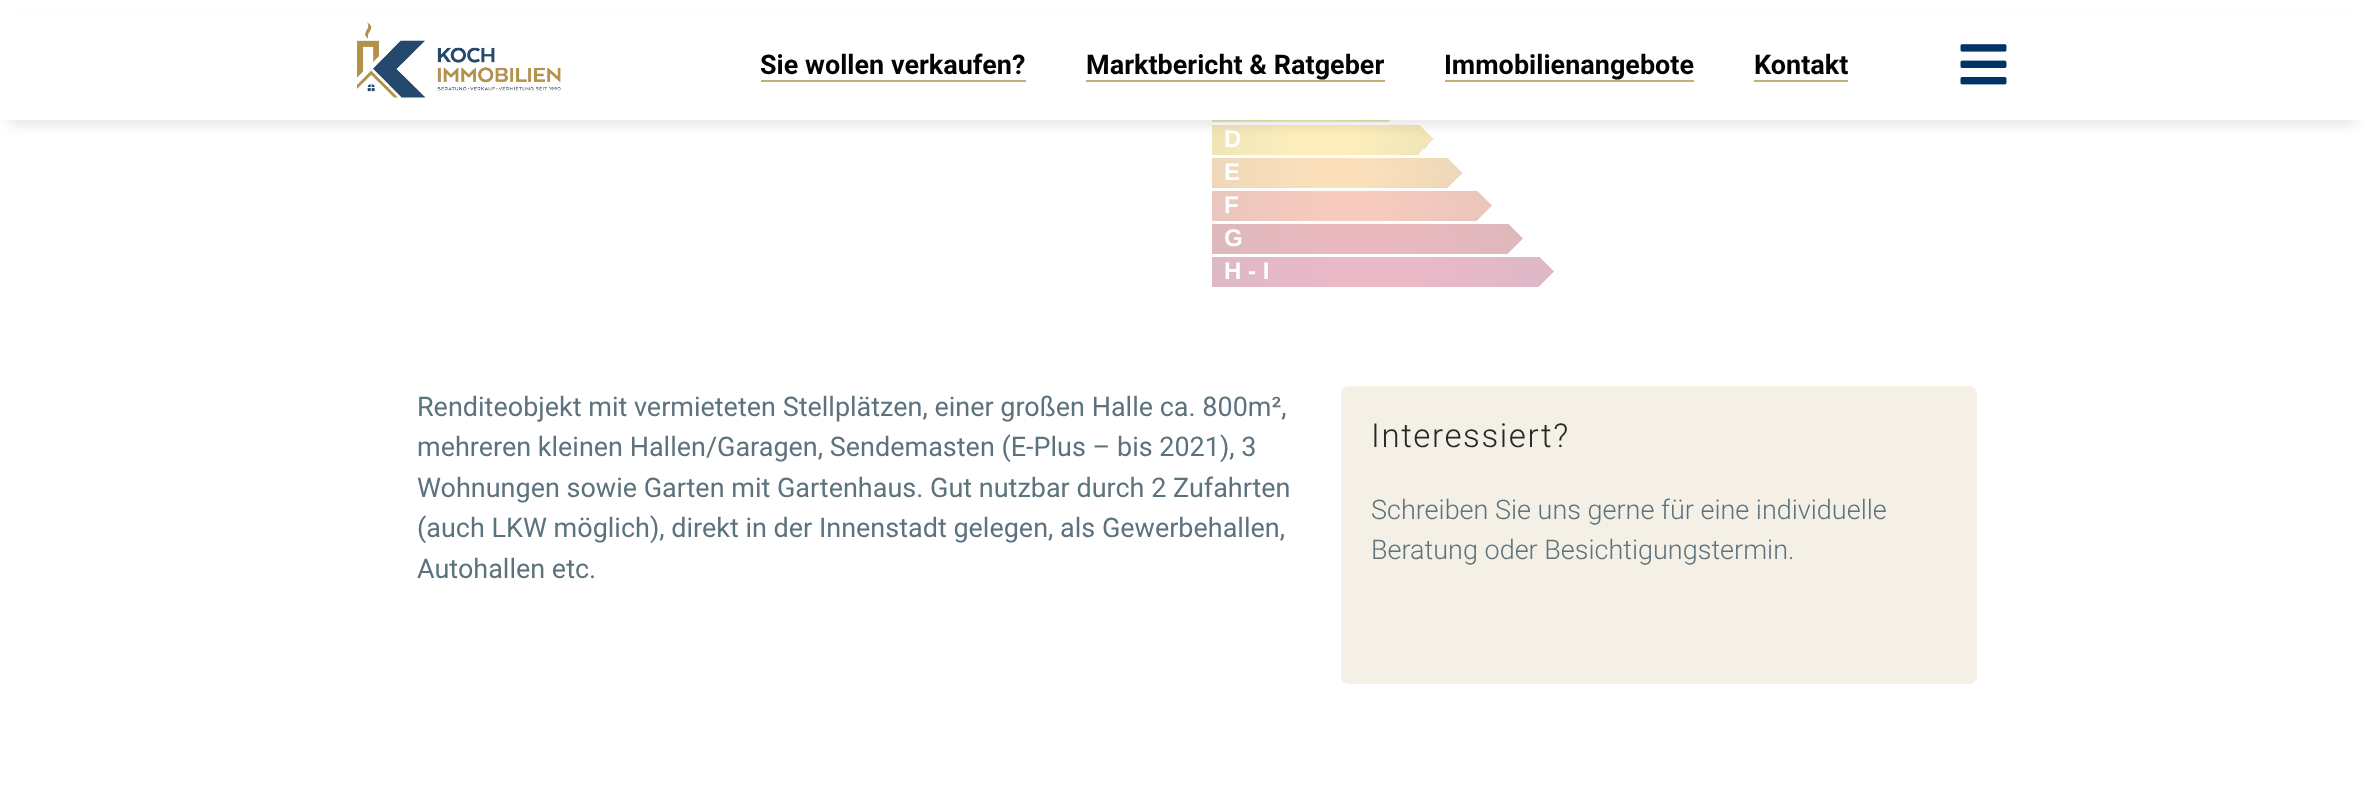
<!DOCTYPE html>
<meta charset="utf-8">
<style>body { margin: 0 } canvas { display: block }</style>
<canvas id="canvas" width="2363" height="796"></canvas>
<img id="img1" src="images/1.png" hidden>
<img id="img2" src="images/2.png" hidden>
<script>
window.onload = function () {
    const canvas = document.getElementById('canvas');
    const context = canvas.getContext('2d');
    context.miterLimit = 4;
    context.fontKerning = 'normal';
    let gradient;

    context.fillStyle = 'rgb(255, 255, 255)';
    context.fillRect(0, 0, 2363, 796);
    gradient = context.createLinearGradient(1212, 114, 1317, 114);
    gradient.addColorStop(0, 'rgb(221, 228, 184)');
    gradient.addColorStop(0.7, 'rgb(232, 239, 185)');
    context.fillStyle = gradient;
    context.fillRect(1212, 120, 105, 2);
    gradient = context.createLinearGradient(1400, 144, 1340, 84);
    gradient.addColorStop(0.28, 'rgb(255, 255, 255)');
    gradient.addColorStop(0.28, 'rgb(221, 228, 184)');
    gradient.addColorStop(0.8, 'rgb(232, 239, 185)');
    context.fillStyle = gradient;
    context.fillRect(1317, 120, 73, 2);
    gradient = context.createLinearGradient(1212, 147, 1332, 147);
    gradient.addColorStop(0, 'rgb(241, 229, 184)');
    gradient.addColorStop(0.7, 'rgb(253, 238, 187)');
    context.fillStyle = gradient;
    context.fillRect(1212, 140, 120, 15);
    gradient = context.createLinearGradient(1426, 181, 1358, 113);
    gradient.addColorStop(0.25, 'rgb(255, 255, 255)');
    gradient.addColorStop(0.25, 'rgb(241, 229, 184)');
    gradient.addColorStop(0.8, 'rgb(253, 238, 187)');
    context.fillStyle = gradient;
    context.fillRect(1332, 140, 101, 15);
    gradient = context.createLinearGradient(1426, 98, 1358, 166);
    gradient.addColorStop(0.25, 'rgb(255, 255, 255)');
    gradient.addColorStop(0.25, 'rgb(241, 229, 184)');
    gradient.addColorStop(0.8, 'rgb(253, 238, 187)');
    context.fillStyle = gradient;
    context.fillRect(1332, 125, 102, 15);
    gradient = context.createLinearGradient(1212, 132, 1332, 132);
    gradient.addColorStop(0, 'rgb(241, 229, 184)');
    gradient.addColorStop(0.7, 'rgb(253, 238, 187)');
    context.fillStyle = gradient;
    context.fillRect(1212, 125, 120, 15);
    context.fillStyle = 'rgba(0, 0, 0, 0.1)';
    context.filter = 'blur(7px)';
    context.beginPath();
    context.rect(9, 23, 2346, 102);
    context.fill();
    context.filter = 'none';
    context.fillStyle = 'rgb(255, 255, 255)';
    context.fillRect(0, 14, 2363, 106);
    context.drawImage(document.getElementById('img1'), 357, 22, 204, 76);
    context.fillStyle = 'rgb(195, 175, 121)';
    context.fillRect(761, 80, 265, 2);
    context.fillRect(1086, 80, 299, 2);
    context.fillRect(1445, 80, 249, 2);
    context.fillRect(1754, 80, 94, 2);
    context.drawImage(document.getElementById('img2'), 1960, 44, 47, 41);
    gradient = context.createLinearGradient(1212, 180, 1347, 180);
    gradient.addColorStop(0, 'rgb(238, 216, 185)');
    gradient.addColorStop(0.7, 'rgb(250, 223, 186)');
    context.fillStyle = gradient;
    context.fillRect(1212, 173, 135, 15);
    gradient = context.createLinearGradient(1452, 218, 1377, 143);
    gradient.addColorStop(0.23, 'rgb(255, 255, 255)');
    gradient.addColorStop(0.23, 'rgb(238, 216, 185)');
    gradient.addColorStop(0.8, 'rgb(250, 223, 186)');
    context.fillStyle = gradient;
    context.fillRect(1347, 173, 115, 15);
    gradient = context.createLinearGradient(1452, 128, 1377, 203);
    gradient.addColorStop(0.23, 'rgb(255, 255, 255)');
    gradient.addColorStop(0.23, 'rgb(238, 216, 185)');
    gradient.addColorStop(0.8, 'rgb(250, 223, 186)');
    context.fillStyle = gradient;
    context.fillRect(1347, 158, 115, 15);
    gradient = context.createLinearGradient(1212, 165, 1347, 165);
    gradient.addColorStop(0, 'rgb(238, 216, 185)');
    gradient.addColorStop(0.7, 'rgb(250, 223, 186)');
    context.fillStyle = gradient;
    context.fillRect(1212, 158, 135, 15);
    gradient = context.createLinearGradient(1212, 213, 1362, 213);
    gradient.addColorStop(0, 'rgb(234, 198, 188)');
    gradient.addColorStop(0.7, 'rgb(246, 202, 190)');
    context.fillStyle = gradient;
    context.fillRect(1212, 206, 150, 15);
    gradient = context.createLinearGradient(1478, 254, 1396, 172);
    gradient.addColorStop(0.21, 'rgb(255, 255, 255)');
    gradient.addColorStop(0.21, 'rgb(234, 198, 188)');
    gradient.addColorStop(0.8, 'rgb(246, 202, 190)');
    context.fillStyle = gradient;
    context.fillRect(1362, 206, 129, 15);
    gradient = context.createLinearGradient(1478, 157, 1396, 239);
    gradient.addColorStop(0.21, 'rgb(255, 255, 255)');
    gradient.addColorStop(0.21, 'rgb(234, 198, 188)');
    gradient.addColorStop(0.8, 'rgb(246, 202, 190)');
    context.fillStyle = gradient;
    context.fillRect(1362, 191, 130, 15);
    gradient = context.createLinearGradient(1212, 198, 1362, 198);
    gradient.addColorStop(0, 'rgb(234, 198, 188)');
    gradient.addColorStop(0.7, 'rgb(246, 202, 190)');
    context.fillStyle = gradient;
    context.fillRect(1212, 191, 150, 15);
    gradient = context.createLinearGradient(1212, 246, 1377, 246);
    gradient.addColorStop(0, 'rgb(222, 184, 188)');
    gradient.addColorStop(0.7, 'rgb(233, 185, 191)');
    context.fillStyle = gradient;
    context.fillRect(1212, 239, 165, 15);
    gradient = context.createLinearGradient(1505, 291, 1415, 201);
    gradient.addColorStop(0.19, 'rgb(255, 255, 255)');
    gradient.addColorStop(0.19, 'rgb(222, 184, 188)');
    gradient.addColorStop(0.8, 'rgb(233, 185, 191)');
    context.fillStyle = gradient;
    context.fillRect(1377, 239, 145, 15);
    gradient = context.createLinearGradient(1505, 186, 1415, 276);
    gradient.addColorStop(0.19, 'rgb(255, 255, 255)');
    gradient.addColorStop(0.19, 'rgb(222, 184, 188)');
    gradient.addColorStop(0.8, 'rgb(233, 185, 191)');
    context.fillStyle = gradient;
    context.fillRect(1377, 224, 146, 15);
    gradient = context.createLinearGradient(1212, 231, 1377, 231);
    gradient.addColorStop(0, 'rgb(222, 184, 188)');
    gradient.addColorStop(0.7, 'rgb(233, 185, 191)');
    context.fillStyle = gradient;
    context.fillRect(1212, 224, 165, 15);
    gradient = context.createLinearGradient(1212, 279, 1392, 279);
    gradient.addColorStop(0, 'rgb(222, 184, 199)');
    gradient.addColorStop(0.7, 'rgb(234, 185, 200)');
    context.fillStyle = gradient;
    context.fillRect(1212, 272, 180, 15);
    gradient = context.createLinearGradient(1531, 328, 1433, 230);
    gradient.addColorStop(0.17, 'rgb(255, 255, 255)');
    gradient.addColorStop(0.17, 'rgb(222, 184, 199)');
    gradient.addColorStop(0.8, 'rgb(234, 185, 200)');
    context.fillStyle = gradient;
    context.fillRect(1392, 272, 161, 15);
    gradient = context.createLinearGradient(1531, 215, 1433, 313);
    gradient.addColorStop(0.17, 'rgb(255, 255, 255)');
    gradient.addColorStop(0.17, 'rgb(222, 184, 199)');
    gradient.addColorStop(0.8, 'rgb(234, 185, 200)');
    context.fillStyle = gradient;
    context.fillRect(1392, 257, 162, 15);
    gradient = context.createLinearGradient(1212, 264, 1392, 264);
    gradient.addColorStop(0, 'rgb(222, 184, 199)');
    gradient.addColorStop(0.7, 'rgb(234, 185, 200)');
    context.fillStyle = gradient;
    context.fillRect(1212, 257, 180, 15);
    context.fillStyle = 'rgb(244, 240, 229)';
    context.beginPath();
    context.roundRect(1341, 386, 636, 298, 8);
    context.fill();
    context.font = 'bold 27px Roboto';
    context.fillStyle = 'rgb(7, 3, 0)';
    context.fillText('Sie wollen verkaufen?', 760, 74);
    context.fillText('Marktbericht & Ratgeber', 1086, 74);
    context.fillText('Immobilienangebote', 1444, 74);
    context.fillText('Kontakt', 1754, 74);
    context.font = 'bold 24px Liberation Sans';
    context.fillStyle = 'rgb(255, 255, 255)';
    context.fillText('D', 1224, 147);
    context.fillText('E', 1224, 180);
    context.fillText('F', 1224, 213);
    context.fillText('G', 1224, 246);
    context.fillText('H - I', 1224, 279);
    context.font = '27px Roboto';
    context.fillStyle = 'rgb(92, 114, 125)';
    context.fillText('Renditeobjekt mit vermieteten Stellplätzen, einer großen Halle ca. 800m²,', 417, 416);
    context.fillText('mehreren kleinen Hallen/Garagen, Sendemasten (E-Plus – bis 2021), 3', 417, 456);
    context.fillText('Wohnungen sowie Garten mit Gartenhaus. Gut nutzbar durch 2 Zufahrten', 417, 497);
    context.fillText('(auch LKW möglich), direkt in der Innenstadt gelegen, als Gewerbehallen,', 417, 537);
    context.fillText('Autohallen etc.', 417, 578);
    context.letterSpacing = '1.6px';
    context.font = '300 33px Roboto';
    context.fillStyle = 'rgb(39, 39, 39)';
    context.fillText('Interessiert?', 1371, 447);
    context.letterSpacing = '0px';
    context.font = '300 27px Roboto';
    context.fillStyle = 'rgb(92, 114, 125)';
    context.fillText('Schreiben Sie uns gerne für eine individuelle', 1371, 519);
    context.fillText('Beratung oder Besichtigungstermin.', 1371, 559);
};
</script>
